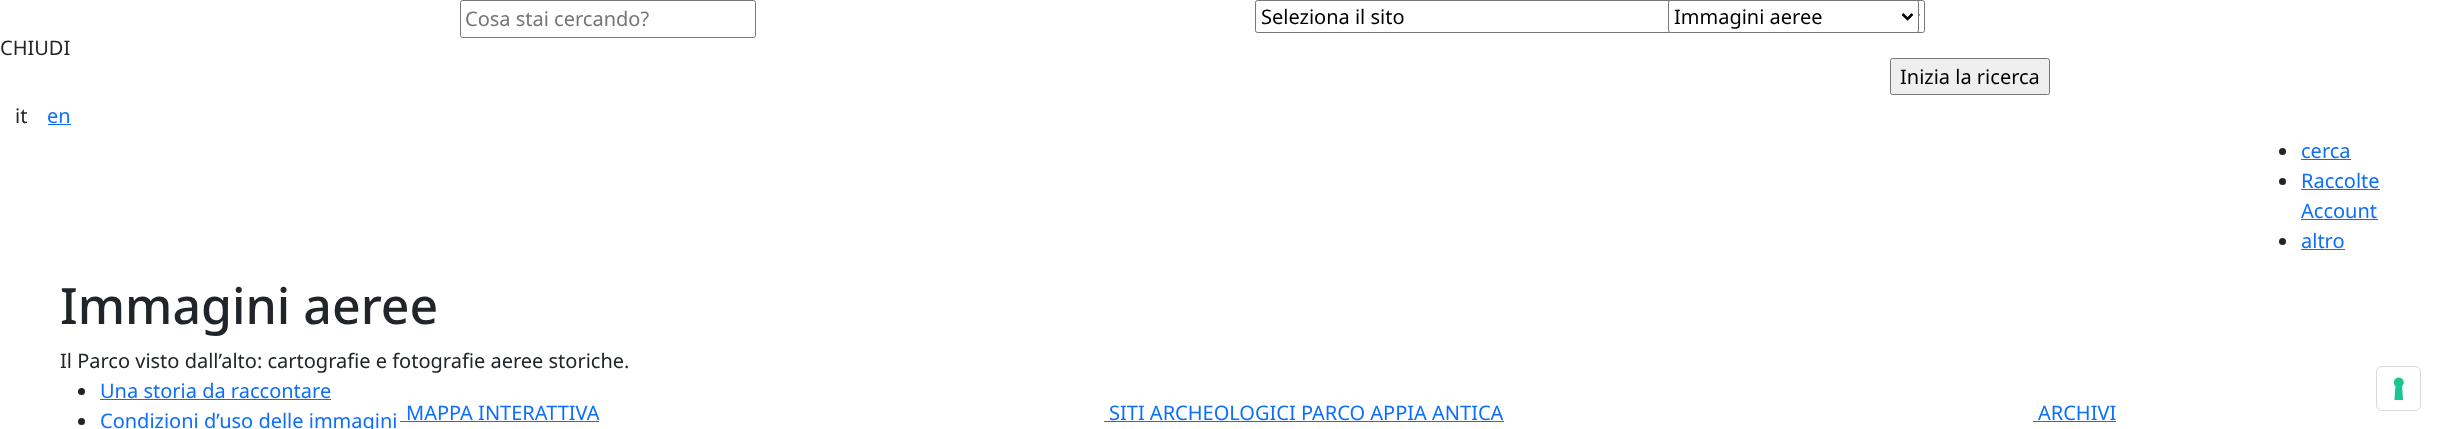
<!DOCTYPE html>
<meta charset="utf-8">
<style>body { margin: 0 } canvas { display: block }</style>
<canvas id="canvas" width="2440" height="429"></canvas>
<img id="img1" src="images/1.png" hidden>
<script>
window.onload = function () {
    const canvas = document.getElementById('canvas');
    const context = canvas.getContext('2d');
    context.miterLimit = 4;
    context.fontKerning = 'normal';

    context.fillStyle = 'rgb(255, 255, 255)';
    context.fillRect(0, 0, 2440, 429);
    context.beginPath();
    context.roundRect(460.5, 0.5, 295, 37, 2);
    context.strokeStyle = 'rgb(118, 118, 118)';
    context.stroke();
    context.beginPath();
    context.roundRect(1255.5, 0.5, 669, 32, 2);
    context.stroke();
    context.beginPath();
    context.moveTo(1909, 14);
    context.lineTo(1914, 19);
    context.lineTo(1919, 14);
    context.strokeStyle = 'rgb(0, 0, 0)';
    context.lineWidth = 2.5;
    context.stroke();
    context.beginPath();
    context.roundRect(1668.5, 0.5, 250, 32, 2);
    context.fill();
    context.strokeStyle = 'rgb(118, 118, 118)';
    context.lineWidth = 1;
    context.stroke();
    context.beginPath();
    context.moveTo(1902.5, 14);
    context.lineTo(1907.5, 19);
    context.lineTo(1912.5, 14);
    context.strokeStyle = 'rgb(0, 0, 0)';
    context.lineWidth = 2.5;
    context.stroke();
    context.fillStyle = 'rgb(239, 239, 239)';
    context.beginPath();
    context.roundRect(1890.5, 58.5, 159, 36, 2);
    context.fill();
    context.strokeStyle = 'rgb(118, 118, 118)';
    context.lineWidth = 1;
    context.stroke();
    context.fillStyle = 'rgb(13, 110, 253)';
    context.fillRect(48, 124, 23, 1);
    context.fillStyle = 'rgb(33, 37, 41)';
    context.beginPath();
    context.arc(2282.5, 151.5, 3.5, 0, 2 * Math.PI);
    context.fill();
    context.fillStyle = 'rgb(13, 110, 253)';
    context.fillRect(2301, 159, 50, 1);
    context.fillStyle = 'rgb(33, 37, 41)';
    context.beginPath();
    context.arc(2282.5, 181.5, 3.5, 0, 2 * Math.PI);
    context.fill();
    context.fillStyle = 'rgb(13, 110, 253)';
    context.fillRect(2301, 189, 79, 1);
    context.fillRect(2301, 219, 77, 1);
    context.fillStyle = 'rgb(33, 37, 41)';
    context.beginPath();
    context.arc(2282.5, 241.5, 3.5, 0, 2 * Math.PI);
    context.fill();
    context.fillStyle = 'rgb(13, 110, 253)';
    context.fillRect(2301, 249, 44, 1);
    context.fillStyle = 'rgb(33, 37, 41)';
    context.beginPath();
    context.arc(81.5, 391.5, 3.5, 0, 2 * Math.PI);
    context.fill();
    context.fillStyle = 'rgb(13, 110, 253)';
    context.fillRect(100, 399, 231, 1);
    context.fillStyle = 'rgb(33, 37, 41)';
    context.beginPath();
    context.arc(81.5, 421.5, 3.5, 0, 2 * Math.PI);
    context.fill();
    context.fillStyle = 'rgb(13, 110, 253)';
    context.fillRect(400, 421, 199, 1);
    context.fillRect(1104, 421, 400, 1);
    context.fillRect(2033, 421, 83, 1);
    context.beginPath();
    context.roundRect(2376.5, 366.5, 44, 44, 5.5);
    context.strokeStyle = 'rgb(217, 217, 217)';
    context.stroke();
    context.fillStyle = 'rgb(255, 255, 255)';
    context.beginPath();
    context.roundRect(2378, 368, 42, 42, 5);
    context.fill();
    context.drawImage(document.getElementById('img1'), 2393, 377, 11, 23);
    context.font = '20px Noto Sans';
    context.fillStyle = 'rgb(33, 37, 41)';
    context.fillText('CHIUDI', 0, 55);
    context.fillStyle = 'rgb(117, 117, 117)';
    context.fillText('Cosa stai cercando?', 465, 26);
    context.fillStyle = 'rgb(0, 0, 0)';
    context.fillText('Seleziona il sito', 1261, 24);
    context.fillText('Immagini aeree', 1674, 24);
    context.fillText('Inizia la ricerca', 1900, 84);
    context.fillStyle = 'rgb(33, 37, 41)';
    context.fillText('it', 15, 123);
    context.fillStyle = 'rgb(13, 110, 253)';
    context.fillText('en', 47, 123);
    context.fillText('cerca', 2301, 158);
    context.fillText('Raccolte', 2301, 188);
    context.fillText('Account', 2301, 218);
    context.fillText('altro', 2301, 248);
    context.font = '500 50px Noto Sans';
    context.fillStyle = 'rgb(33, 37, 41)';
    context.fillText('Immagini aeree', 60, 324);
    context.font = '20px Noto Sans';
    context.fillText('Il Parco visto dall’alto: cartografie e fotografie aeree storiche.', 60, 368);
    context.fillStyle = 'rgb(13, 110, 253)';
    context.fillText('Una storia da raccontare', 100, 398);
    context.fillText('Condizioni d’uso delle immagini', 100, 428);
    context.fillText('MAPPA INTERATTIVA', 406, 420);
    context.fillText('SITI ARCHEOLOGICI PARCO APPIA ANTICA', 1109, 420);
    context.fillText('ARCHIVI', 2038, 420);
};
</script>
